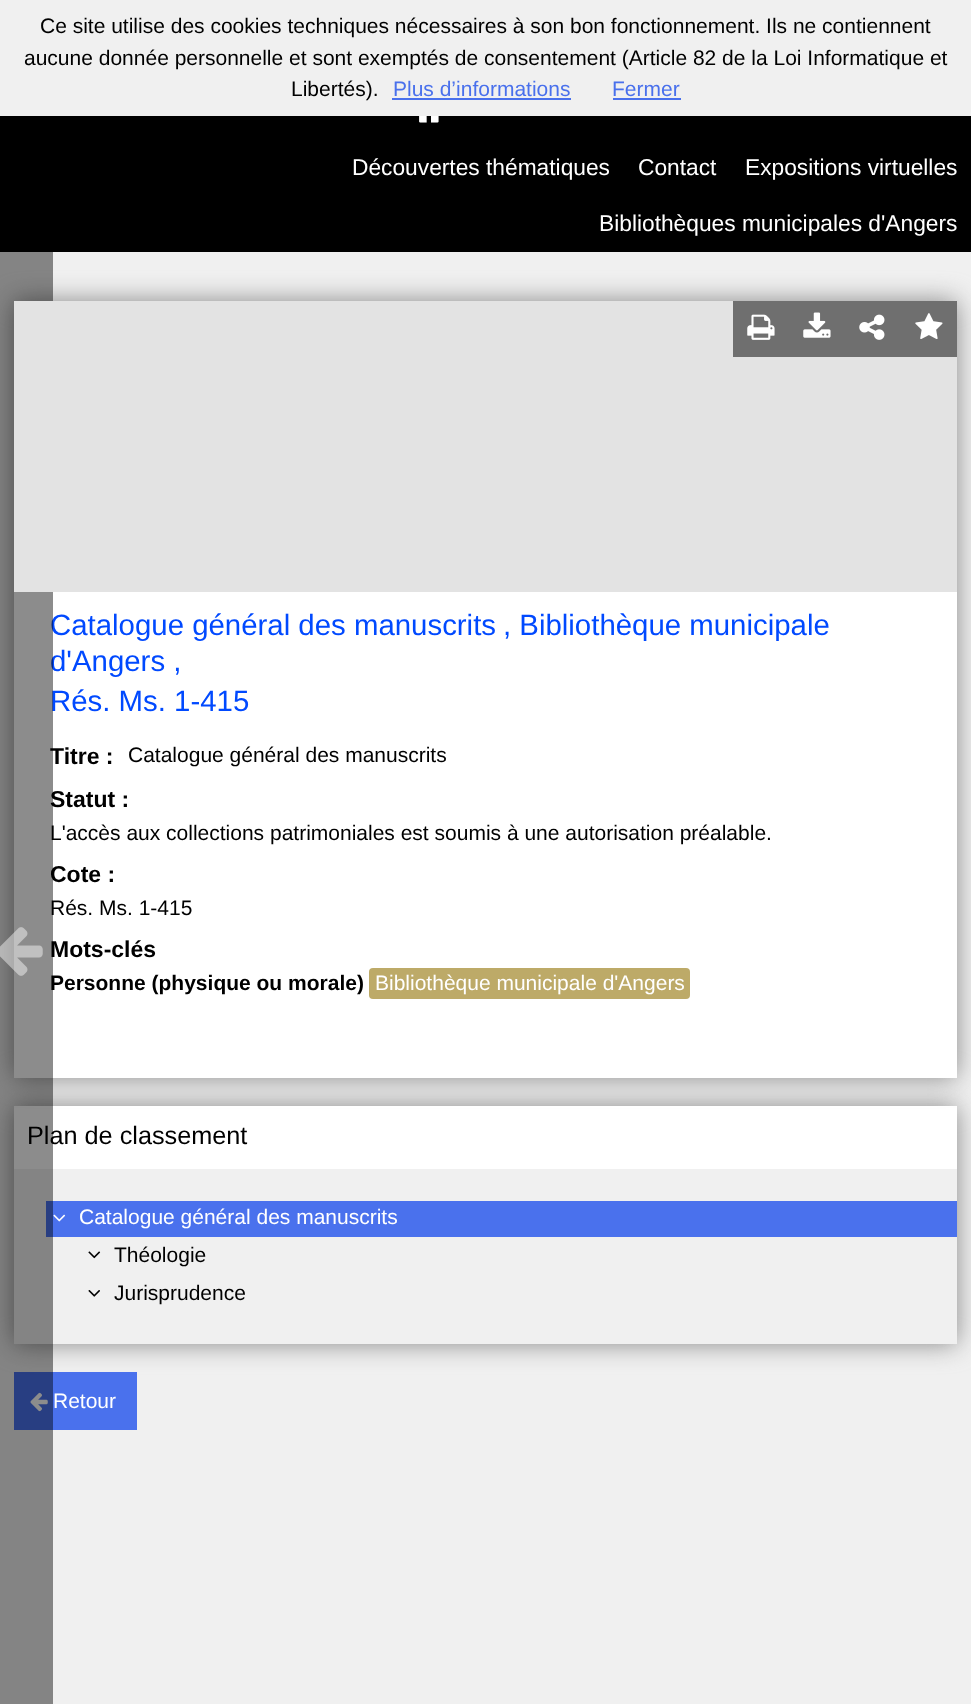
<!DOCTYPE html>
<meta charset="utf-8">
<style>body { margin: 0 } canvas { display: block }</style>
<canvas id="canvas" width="971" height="1704"></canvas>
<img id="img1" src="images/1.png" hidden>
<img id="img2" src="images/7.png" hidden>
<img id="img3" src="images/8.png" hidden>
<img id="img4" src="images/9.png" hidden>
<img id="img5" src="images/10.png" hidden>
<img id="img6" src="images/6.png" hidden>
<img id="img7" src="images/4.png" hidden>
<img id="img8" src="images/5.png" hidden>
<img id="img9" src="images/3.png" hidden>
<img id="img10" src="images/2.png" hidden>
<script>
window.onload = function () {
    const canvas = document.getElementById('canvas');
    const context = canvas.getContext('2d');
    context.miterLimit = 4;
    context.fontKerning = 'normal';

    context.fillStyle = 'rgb(240, 240, 240)';
    context.fillRect(0, 0, 971, 1704);
    context.fillStyle = 'rgb(73, 112, 236)';
    context.fillRect(392, 98, 179, 2);
    context.fillRect(613, 98, 68, 2);
    context.fillStyle = 'rgb(0, 0, 0)';
    context.fillRect(0, 116, 971, 136);
    context.drawImage(document.getElementById('img1'), 419, 116, 20, 7);
    context.fillStyle = 'rgb(74, 113, 237)';
    context.fillRect(14, 1372, 123, 58);
    context.save();
    context.beginPath();
    context.moveTo(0, 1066);
    context.lineTo(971, 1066);
    context.lineTo(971, 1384);
    context.lineTo(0, 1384);
    context.closePath();
    context.moveTo(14, 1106);
    context.lineTo(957, 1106);
    context.lineTo(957, 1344);
    context.lineTo(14, 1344);
    context.closePath();
    context.clip('evenodd');
    context.fillStyle = 'rgb(136, 136, 136)';
    context.filter = 'blur(13px)';
    context.beginPath();
    context.rect(14, 1106, 943, 238);
    context.fill();
    context.filter = 'none';
    context.restore();
    context.fillStyle = 'rgb(255, 255, 255)';
    context.fillRect(14, 1106, 943, 63);
    context.fillStyle = 'rgb(136, 136, 136)';
    context.filter = 'blur(13px)';
    context.beginPath();
    context.rect(14, 301, 943, 777);
    context.fill();
    context.filter = 'none';
    context.fillStyle = 'rgb(255, 255, 255)';
    context.fillRect(14, 592, 943, 486);
    context.fillStyle = 'rgb(189, 170, 104)';
    context.beginPath();
    context.roundRect(369, 968, 321, 31, 4);
    context.fill();
    context.fillStyle = 'rgb(74, 113, 237)';
    context.fillRect(46, 1201, 911, 36);
    context.drawImage(document.getElementById('img2'), 53, 1214, 13, 8);
    context.drawImage(document.getElementById('img3'), 88, 1251, 13, 8);
    context.drawImage(document.getElementById('img4'), 88, 1290, 12, 7);
    context.drawImage(document.getElementById('img5'), 30, 1392, 18, 20);
    context.font = '21px Liberation Sans';
    context.fillStyle = 'rgb(0, 0, 0)';
    context.fillText('Ce site utilise des cookies techniques nécessaires à son bon fonctionnement. Ils ne contiennent', 40, 33);
    context.fillText('aucune donnée personnelle et sont exemptés de consentement (Article 82 de la Loi Informatique et', 24, 65);
    context.fillText('Libertés).', 291, 96);
    context.fillStyle = 'rgb(73, 112, 236)';
    context.fillText('Plus d’informations', 393, 96);
    context.fillText('Fermer', 612, 96);
    context.font = '22.75px Liberation Sans';
    context.fillStyle = 'rgb(255, 255, 255)';
    context.fillText('Découvertes thématiques', 352, 175);
    context.fillText('Contact', 638, 175);
    context.fillText('Expositions virtuelles', 745, 175);
    context.fillText('Bibliothèques municipales d\'Angers', 599, 231);
    context.font = '29.4px Liberation Sans';
    context.fillStyle = 'rgb(0, 73, 255)';
    context.fillText('Catalogue général des manuscrits', 50, 635);
    context.fillText(', Bibliothèque municipale', 503, 635);
    context.fillText('d\'Angers ,', 50, 671);
    context.fillText('Rés. Ms. 1-415', 50, 711);
    context.font = 'bold 23px Liberation Sans';
    context.fillStyle = 'rgb(0, 0, 0)';
    context.fillText('Titre :', 50, 764);
    context.font = '21px Liberation Sans';
    context.fillText('Catalogue général des manuscrits', 128, 762);
    context.font = 'bold 23px Liberation Sans';
    context.fillText('Statut :', 50, 807);
    context.font = '21px Liberation Sans';
    context.fillText('L\'accès aux collections patrimoniales est soumis à une autorisation préalable.', 50, 840);
    context.font = 'bold 23px Liberation Sans';
    context.fillText('Cote :', 50, 882);
    context.font = '21px Liberation Sans';
    context.fillText('Rés. Ms. 1-415', 50, 915);
    context.font = 'bold 23px Liberation Sans';
    context.fillText('Mots-clés', 50, 957);
    context.font = 'bold 21px Liberation Sans';
    context.fillText('Personne (physique ou morale)', 50, 990);
    context.font = '21px Liberation Sans';
    context.fillStyle = 'rgb(255, 255, 255)';
    context.fillText('Bibliothèque municipale d\'Angers', 375, 990);
    context.font = '25.25px Liberation Sans';
    context.fillStyle = 'rgb(0, 0, 0)';
    context.fillText('Plan de classement', 27, 1144);
    context.fillStyle = 'rgba(0, 0, 0, 0.45)';
    context.fillRect(0, 252, 53, 1452);
    context.fillStyle = 'rgb(227, 227, 227)';
    context.fillRect(14, 301, 943, 291);
    context.fillStyle = 'rgb(111, 111, 111)';
    context.fillRect(845, 301, 112, 56);
    context.drawImage(document.getElementById('img6'), 859, 314, 26, 26);
    context.drawImage(document.getElementById('img7'), 915, 313, 28, 26);
    context.fillRect(733, 301, 112, 56);
    context.drawImage(document.getElementById('img8'), 803, 312, 28, 26);
    context.drawImage(document.getElementById('img9'), 747, 314, 28, 26);
    context.drawImage(document.getElementById('img10'), 0, 927, 43, 49);
    context.font = '21px Liberation Sans';
    context.fillStyle = 'rgb(255, 255, 255)';
    context.fillText('Catalogue général des manuscrits', 79, 1224);
    context.fillStyle = 'rgb(0, 0, 0)';
    context.fillText('Théologie', 114, 1262);
    context.fillText('Jurisprudence', 114, 1300);
    context.fillStyle = 'rgb(255, 255, 255)';
    context.fillText('Retour', 53, 1408);
};
</script>
